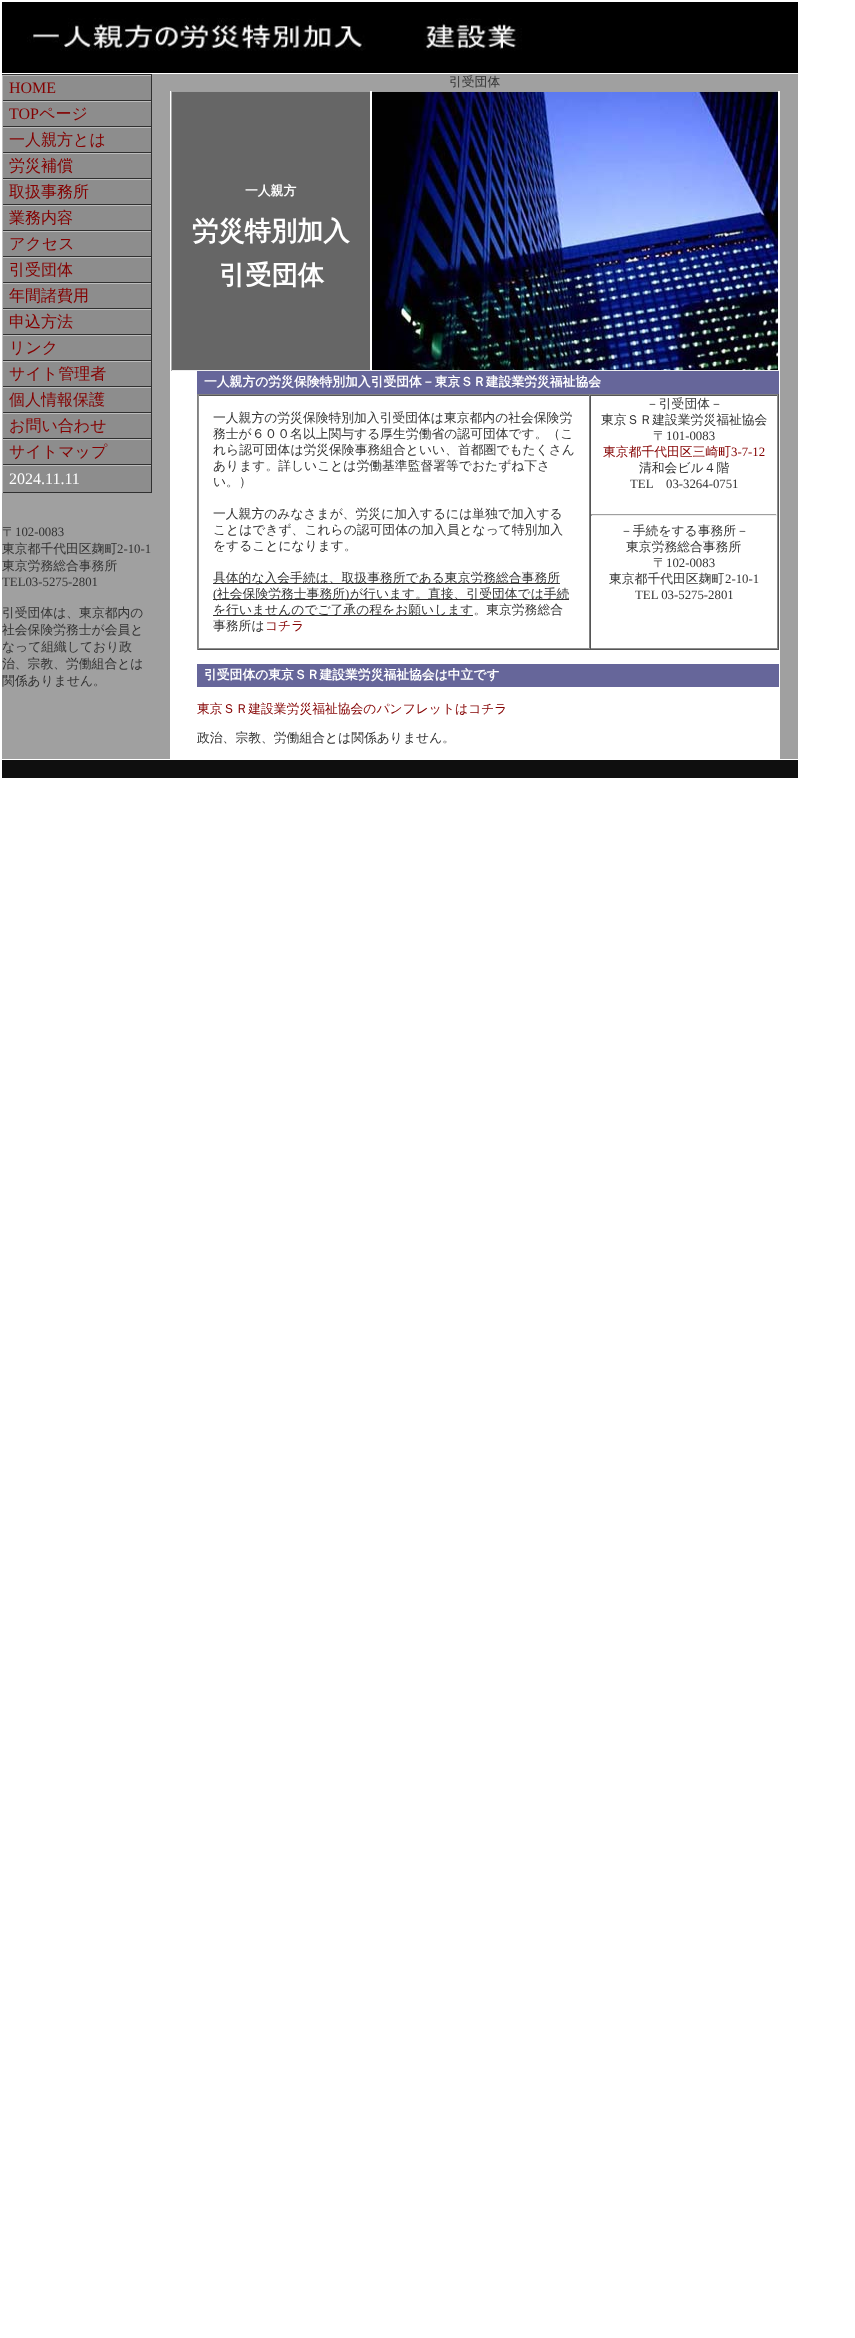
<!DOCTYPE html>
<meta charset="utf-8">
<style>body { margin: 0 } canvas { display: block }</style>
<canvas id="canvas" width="855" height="2338"></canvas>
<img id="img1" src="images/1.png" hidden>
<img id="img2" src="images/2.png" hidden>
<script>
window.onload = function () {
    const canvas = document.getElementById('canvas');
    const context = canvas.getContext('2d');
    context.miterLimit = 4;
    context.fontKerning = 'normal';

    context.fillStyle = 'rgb(255, 255, 255)';
    context.fillRect(0, 0, 855, 2338);
    context.fillStyle = 'rgb(0, 0, 0)';
    context.fillRect(2, 2, 796, 71);
    context.drawImage(document.getElementById('img1'), 27, 18, 495, 33);
    context.fillStyle = 'rgb(160, 160, 160)';
    context.fillRect(2, 493, 150, 266);
    context.fillStyle = 'rgb(48, 48, 48)';
    context.fillRect(2, 74, 150, 1);
    context.fillStyle = 'rgb(141, 141, 141)';
    context.fillRect(3, 76, 148, 24);
    context.fillStyle = 'rgb(188, 188, 188)';
    context.fillRect(2, 75, 150, 1);
    context.fillStyle = 'rgb(48, 48, 48)';
    context.fillRect(151, 75, 1, 26);
    context.fillRect(2, 100, 150, 1);
    context.fillStyle = 'rgb(188, 188, 188)';
    context.fillRect(2, 75, 1, 26);
    context.fillStyle = 'rgb(141, 141, 141)';
    context.fillRect(3, 102, 148, 24);
    context.fillStyle = 'rgb(188, 188, 188)';
    context.fillRect(2, 101, 150, 1);
    context.fillStyle = 'rgb(48, 48, 48)';
    context.fillRect(151, 101, 1, 26);
    context.fillRect(2, 126, 150, 1);
    context.fillStyle = 'rgb(188, 188, 188)';
    context.fillRect(2, 101, 1, 26);
    context.fillStyle = 'rgb(141, 141, 141)';
    context.fillRect(3, 128, 148, 24);
    context.fillStyle = 'rgb(188, 188, 188)';
    context.fillRect(2, 127, 150, 1);
    context.fillStyle = 'rgb(48, 48, 48)';
    context.fillRect(151, 127, 1, 26);
    context.fillRect(2, 152, 150, 1);
    context.fillStyle = 'rgb(188, 188, 188)';
    context.fillRect(2, 127, 1, 26);
    context.fillStyle = 'rgb(141, 141, 141)';
    context.fillRect(3, 154, 148, 24);
    context.fillStyle = 'rgb(188, 188, 188)';
    context.fillRect(2, 153, 150, 1);
    context.fillStyle = 'rgb(48, 48, 48)';
    context.fillRect(151, 153, 1, 26);
    context.fillRect(2, 178, 150, 1);
    context.fillStyle = 'rgb(188, 188, 188)';
    context.fillRect(2, 153, 1, 26);
    context.fillStyle = 'rgb(141, 141, 141)';
    context.fillRect(3, 180, 148, 24);
    context.fillStyle = 'rgb(188, 188, 188)';
    context.fillRect(2, 179, 150, 1);
    context.fillStyle = 'rgb(48, 48, 48)';
    context.fillRect(151, 179, 1, 26);
    context.fillRect(2, 204, 150, 1);
    context.fillStyle = 'rgb(188, 188, 188)';
    context.fillRect(2, 179, 1, 26);
    context.fillStyle = 'rgb(141, 141, 141)';
    context.fillRect(3, 206, 148, 24);
    context.fillStyle = 'rgb(188, 188, 188)';
    context.fillRect(2, 205, 150, 1);
    context.fillStyle = 'rgb(48, 48, 48)';
    context.fillRect(151, 205, 1, 26);
    context.fillRect(2, 230, 150, 1);
    context.fillStyle = 'rgb(188, 188, 188)';
    context.fillRect(2, 205, 1, 26);
    context.fillStyle = 'rgb(141, 141, 141)';
    context.fillRect(3, 232, 148, 24);
    context.fillStyle = 'rgb(188, 188, 188)';
    context.fillRect(2, 231, 150, 1);
    context.fillStyle = 'rgb(48, 48, 48)';
    context.fillRect(151, 231, 1, 26);
    context.fillRect(2, 256, 150, 1);
    context.fillStyle = 'rgb(188, 188, 188)';
    context.fillRect(2, 231, 1, 26);
    context.fillStyle = 'rgb(141, 141, 141)';
    context.fillRect(3, 258, 148, 24);
    context.fillStyle = 'rgb(188, 188, 188)';
    context.fillRect(2, 257, 150, 1);
    context.fillStyle = 'rgb(48, 48, 48)';
    context.fillRect(151, 257, 1, 26);
    context.fillRect(2, 282, 150, 1);
    context.fillStyle = 'rgb(188, 188, 188)';
    context.fillRect(2, 257, 1, 26);
    context.fillStyle = 'rgb(141, 141, 141)';
    context.fillRect(3, 284, 148, 24);
    context.fillStyle = 'rgb(188, 188, 188)';
    context.fillRect(2, 283, 150, 1);
    context.fillStyle = 'rgb(48, 48, 48)';
    context.fillRect(151, 283, 1, 26);
    context.fillRect(2, 308, 150, 1);
    context.fillStyle = 'rgb(188, 188, 188)';
    context.fillRect(2, 283, 1, 26);
    context.fillStyle = 'rgb(141, 141, 141)';
    context.fillRect(3, 310, 148, 24);
    context.fillStyle = 'rgb(188, 188, 188)';
    context.fillRect(2, 309, 150, 1);
    context.fillStyle = 'rgb(48, 48, 48)';
    context.fillRect(151, 309, 1, 26);
    context.fillRect(2, 334, 150, 1);
    context.fillStyle = 'rgb(188, 188, 188)';
    context.fillRect(2, 309, 1, 26);
    context.fillStyle = 'rgb(141, 141, 141)';
    context.fillRect(3, 336, 148, 24);
    context.fillStyle = 'rgb(188, 188, 188)';
    context.fillRect(2, 335, 150, 1);
    context.fillStyle = 'rgb(48, 48, 48)';
    context.fillRect(151, 335, 1, 26);
    context.fillRect(2, 360, 150, 1);
    context.fillStyle = 'rgb(188, 188, 188)';
    context.fillRect(2, 335, 1, 26);
    context.fillStyle = 'rgb(141, 141, 141)';
    context.fillRect(3, 362, 148, 24);
    context.fillStyle = 'rgb(188, 188, 188)';
    context.fillRect(2, 361, 150, 1);
    context.fillStyle = 'rgb(48, 48, 48)';
    context.fillRect(151, 361, 1, 26);
    context.fillRect(2, 386, 150, 1);
    context.fillStyle = 'rgb(188, 188, 188)';
    context.fillRect(2, 361, 1, 26);
    context.fillStyle = 'rgb(141, 141, 141)';
    context.fillRect(3, 388, 148, 24);
    context.fillStyle = 'rgb(188, 188, 188)';
    context.fillRect(2, 387, 150, 1);
    context.fillStyle = 'rgb(48, 48, 48)';
    context.fillRect(151, 387, 1, 26);
    context.fillRect(2, 412, 150, 1);
    context.fillStyle = 'rgb(188, 188, 188)';
    context.fillRect(2, 387, 1, 26);
    context.fillStyle = 'rgb(141, 141, 141)';
    context.fillRect(3, 414, 148, 24);
    context.fillStyle = 'rgb(188, 188, 188)';
    context.fillRect(2, 413, 150, 1);
    context.fillStyle = 'rgb(48, 48, 48)';
    context.fillRect(151, 413, 1, 26);
    context.fillRect(2, 438, 150, 1);
    context.fillStyle = 'rgb(188, 188, 188)';
    context.fillRect(2, 413, 1, 26);
    context.fillStyle = 'rgb(141, 141, 141)';
    context.fillRect(3, 440, 148, 24);
    context.fillStyle = 'rgb(188, 188, 188)';
    context.fillRect(2, 439, 150, 1);
    context.fillStyle = 'rgb(48, 48, 48)';
    context.fillRect(151, 439, 1, 26);
    context.fillRect(2, 464, 150, 1);
    context.fillStyle = 'rgb(188, 188, 188)';
    context.fillRect(2, 439, 1, 26);
    context.fillStyle = 'rgb(141, 141, 141)';
    context.fillRect(3, 466, 148, 26);
    context.fillStyle = 'rgb(188, 188, 188)';
    context.fillRect(2, 465, 150, 1);
    context.fillStyle = 'rgb(48, 48, 48)';
    context.fillRect(151, 465, 1, 28);
    context.fillRect(2, 492, 150, 1);
    context.fillStyle = 'rgb(188, 188, 188)';
    context.fillRect(2, 465, 1, 28);
    context.fillStyle = 'rgb(160, 160, 160)';
    context.fillRect(152, 74, 646, 685);
    context.fillStyle = 'rgb(255, 255, 255)';
    context.fillRect(170, 91, 610, 668);
    context.fillStyle = 'rgb(102, 102, 102)';
    context.fillRect(172, 92, 198, 278);
    context.fillStyle = 'rgb(159, 159, 159)';
    context.fillRect(171, 91, 608, 1);
    context.fillStyle = 'rgb(255, 255, 255)';
    context.fillRect(370, 91, 1, 1);
    context.fillStyle = 'rgb(238, 238, 238)';
    context.fillRect(171, 370, 608, 1);
    context.fillStyle = 'rgb(170, 170, 170)';
    context.fillRect(171, 91, 1, 280);
    context.fillStyle = 'rgb(255, 255, 255)';
    context.fillRect(778, 91, 1, 1);
    context.fillRect(371, 91, 1, 280);
    context.drawImage(document.getElementById('img2'), 372, 92, 406, 278);
    context.fillStyle = 'rgb(102, 102, 154)';
    context.fillRect(197, 371, 582, 23);
    context.fillStyle = 'rgb(128, 128, 128)';
    context.fillRect(197, 394, 582, 1);
    context.fillStyle = 'rgb(85, 85, 85)';
    context.fillRect(778, 394, 1, 256);
    context.fillRect(197, 649, 582, 1);
    context.fillStyle = 'rgb(128, 128, 128)';
    context.fillRect(197, 394, 1, 256);
    context.fillStyle = 'rgb(85, 85, 85)';
    context.fillRect(198, 395, 580, 1);
    context.fillStyle = 'rgb(128, 128, 128)';
    context.fillRect(589, 395, 1, 254);
    context.fillStyle = 'rgb(142, 142, 142)';
    context.fillRect(198, 648, 392, 1);
    context.fillRect(198, 395, 1, 254);
    context.fillStyle = 'rgb(51, 51, 51)';
    context.fillRect(213, 583, 347, 1);
    context.fillRect(213, 599, 356, 1);
    context.fillRect(213, 615, 260, 1);
    context.fillStyle = 'rgb(142, 142, 142)';
    context.fillRect(777, 395, 1, 254);
    context.fillRect(590, 648, 188, 1);
    context.fillStyle = 'rgb(85, 85, 85)';
    context.fillRect(590, 395, 1, 254);
    context.fillStyle = 'rgb(159, 159, 159)';
    context.fillRect(591, 514, 186, 1);
    context.fillStyle = 'rgb(238, 238, 238)';
    context.fillRect(776, 514, 1, 2);
    context.fillRect(591, 515, 186, 1);
    context.fillStyle = 'rgb(159, 159, 159)';
    context.fillRect(591, 514, 1, 2);
    context.fillStyle = 'rgb(102, 102, 154)';
    context.fillRect(197, 664, 582, 23);
    context.fillStyle = 'rgb(15, 15, 15)';
    context.fillRect(2, 760, 796, 18);
    context.font = '16px Liberation Serif';
    context.fillStyle = 'rgb(132, 0, 0)';
    context.fillText('HOME', 9, 93);
    context.fillText('TOP', 9, 119);
    context.font = '500 16px WenQuanYi Zen Hei';
    context.fillText('ページ', 39, 119);
    context.fillText('一人親方とは', 9, 145);
    context.fillText('労災補償', 9, 171);
    context.fillText('取扱事務所', 9, 197);
    context.fillText('業務内容', 9, 223);
    context.fillText('アクセス', 9, 249);
    context.fillText('引受団体', 9, 275);
    context.fillText('年間諸費用', 9, 301);
    context.fillText('申込方法', 9, 327);
    context.fillText('リンク', 9, 353);
    context.fillText('サイト管理者', 9, 379);
    context.fillText('個人情報保護', 9, 405);
    context.fillText('お問い合わせ', 9, 431);
    context.fillText('サイトマップ', 9, 457);
    context.font = '16px Liberation Serif';
    context.fillStyle = 'rgb(255, 255, 255)';
    context.fillText('2024.11.11', 9, 484);
    context.font = '500 12.8px WenQuanYi Zen Hei';
    context.fillStyle = 'rgb(51, 51, 51)';
    context.fillText('〒', 2, 536);
    context.font = '12.8px Liberation Serif';
    context.fillText('102-0083', 15, 536);
    context.font = '500 12.8px WenQuanYi Zen Hei';
    context.fillText('東京都千代田区麹町', 2, 553);
    context.font = '12.8px Liberation Serif';
    context.fillText('2-10-1', 117, 553);
    context.font = '500 12.8px WenQuanYi Zen Hei';
    context.fillText('東京労務総合事務所', 2, 570);
    context.font = '12.8px Liberation Serif';
    context.fillText('TEL03-5275-2801', 2, 586);
    context.font = '500 12.8px WenQuanYi Zen Hei';
    context.fillText('引受団体は、東京都内の', 2, 617);
    context.fillText('社会保険労務士が会員と', 2, 634);
    context.fillText('なって組織しており政', 2, 651);
    context.fillText('治、宗教、労働組合とは', 2, 668);
    context.fillText('関係ありません。', 2, 685);
    context.fillText('引受団体', 449, 86);
    context.font = 'bold 12.8px WenQuanYi Zen Hei';
    context.fillStyle = 'rgb(255, 255, 255)';
    context.fillText('一人親方', 245, 195);
    context.font = 'bold 26.25px WenQuanYi Zen Hei';
    context.fillText('労災特別加入', 192, 240);
    context.fillText('引受団体', 219, 284);
    context.font = 'bold 12.8px WenQuanYi Zen Hei';
    context.fillText('一人親方の労災保険特別加入引受団体－東京ＳＲ建設業労災福祉協会', 204, 386);
    context.font = '500 12.8px WenQuanYi Zen Hei';
    context.fillStyle = 'rgb(51, 51, 51)';
    context.fillText('一人親方の労災保険特別加入引受団体は東京都内の社会保険労', 213, 422);
    context.fillText('務士が６００名以上関与する厚生労働省の認可団体です。（こ', 213, 438);
    context.fillText('れら認可団体は労災保険事務組合といい、首都圏でもたくさん', 213, 454);
    context.fillText('あります。詳しいことは労働基準監督署等でおたずね下さ', 213, 470);
    context.fillText('い。）', 213, 486);
    context.fillText('一人親方のみなさまが、労災に加入するには単独で加入する', 213, 518);
    context.fillText('ことはできず、これらの認可団体の加入員となって特別加入', 213, 534);
    context.fillText('をすることになります。', 213, 550);
    context.fillText('具体的な入会手続は、取扱事務所である東京労務総合事務所', 213, 582);
    context.font = '12.8px Liberation Serif';
    context.fillText('(', 213, 598);
    context.font = '500 12.8px WenQuanYi Zen Hei';
    context.fillText('社会保険労務士事務所', 217, 598);
    context.font = '12.8px Liberation Serif';
    context.fillText(')', 345, 598);
    context.font = '500 12.8px WenQuanYi Zen Hei';
    context.fillText('が行います。直接、引受団体では手続', 350, 598);
    context.fillText('を行いませんのでご了承の程をお願いします。東京労務総合', 213, 614);
    context.fillText('事務所は', 213, 630);
    context.fillStyle = 'rgb(132, 0, 0)';
    context.fillText('コチラ', 265, 630);
    context.fillStyle = 'rgb(51, 51, 51)';
    context.fillText('－引受団体－', 646, 408);
    context.fillText('東京ＳＲ建設業労災福祉協会', 601, 424);
    context.fillText('〒', 653, 440);
    context.font = '12.8px Liberation Serif';
    context.fillText('101-0083', 666, 440);
    context.font = '500 12.8px WenQuanYi Zen Hei';
    context.fillStyle = 'rgb(132, 0, 0)';
    context.fillText('東京都千代田区三崎町', 603, 456);
    context.font = '12.8px Liberation Serif';
    context.fillText('3-7-12', 731, 456);
    context.font = '500 12.8px WenQuanYi Zen Hei';
    context.fillStyle = 'rgb(51, 51, 51)';
    context.fillText('清和会ビル４階', 639, 472);
    context.font = '12.8px Liberation Serif';
    context.fillText('TEL', 630, 488);
    context.fillText('03-3264-0751', 666, 488);
    context.font = '500 12.8px WenQuanYi Zen Hei';
    context.fillText('－手続をする事務所－', 620, 535);
    context.fillText('東京労務総合事務所', 626, 551);
    context.fillText('〒', 653, 567);
    context.font = '12.8px Liberation Serif';
    context.fillText('102-0083', 666, 567);
    context.font = '500 12.8px WenQuanYi Zen Hei';
    context.fillText('東京都千代田区麹町', 609, 583);
    context.font = '12.8px Liberation Serif';
    context.fillText('2-10-1', 725, 583);
    context.fillText('TEL 03-5275-2801', 635, 599);
    context.font = 'bold 12.8px WenQuanYi Zen Hei';
    context.fillStyle = 'rgb(255, 255, 255)';
    context.fillText('引受団体の東京ＳＲ建設業労災福祉協会は中立です', 204, 679);
    context.font = '500 12.8px WenQuanYi Zen Hei';
    context.fillStyle = 'rgb(132, 0, 0)';
    context.fillText('東京ＳＲ建設業労災福祉協会のパンフレットはコチラ', 197, 713);
    context.fillStyle = 'rgb(51, 51, 51)';
    context.fillText('政治、宗教、労働組合とは関係ありません。', 197, 742);
};
</script>
